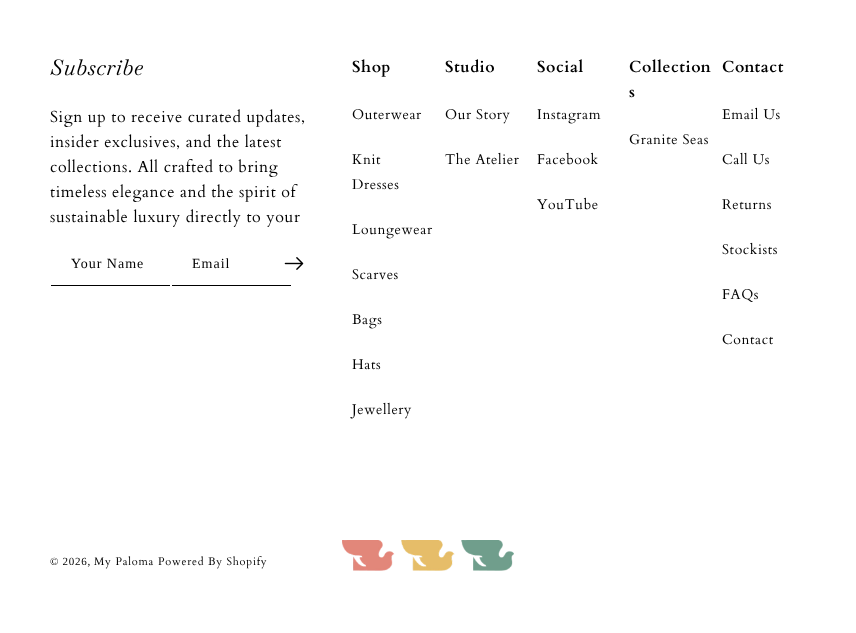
<!DOCTYPE html>
<meta charset="utf-8">
<style>body { margin: 0 } canvas { display: block }</style>
<canvas id="canvas" width="856" height="633"></canvas>
<img id="img1" src="images/1.png" hidden>
<img id="img2" src="images/2.png" hidden>
<script>
window.onload = function () {
    const canvas = document.getElementById('canvas');
    const context = canvas.getContext('2d');
    context.miterLimit = 4;
    context.fontKerning = 'normal';

    context.fillStyle = 'rgb(255, 255, 255)';
    context.fillRect(0, 0, 856, 633);
    context.fillStyle = 'rgb(0, 0, 0)';
    context.fillRect(51, 285, 119, 1);
    context.drawImage(document.getElementById('img1'), 284, 257, 20, 13);
    context.fillRect(172, 285, 119, 1);
    context.drawImage(document.getElementById('img2'), 342, 540, 172, 31);
    context.letterSpacing = '0.6px';
    context.font = 'italic 22px Baskervville';
    context.fillText('Subscribe', 50, 75);
    context.font = '16px Cardo';
    context.fillText('Sign up to receive curated updates,', 50, 122);
    context.fillText('insider exclusives, and the latest', 50, 147);
    context.fillText('collections. All crafted to bring', 50, 172);
    context.fillText('timeless elegance and the spirit of', 50, 197);
    context.fillText('sustainable luxury directly to your', 50, 222);
    context.letterSpacing = '1px';
    context.font = '14px Liberation Serif';
    context.fillText('Your Name', 71, 268);
    context.fillText('Email', 192, 268);
    context.letterSpacing = '0.6px';
    context.font = 'bold 16px Cardo';
    context.fillText('Shop', 352, 72);
    context.font = '14px Cardo';
    context.fillText('Outerwear', 352, 119);
    context.fillText('Knit', 352, 164);
    context.fillText('Dresses', 352, 189);
    context.fillText('Loungewear', 352, 234);
    context.fillText('Scarves', 352, 279);
    context.fillText('Bags', 352, 324);
    context.fillText('Hats', 352, 369);
    context.fillText('Jewellery', 352, 414);
    context.font = 'bold 16px Cardo';
    context.fillText('Studio', 445, 72);
    context.font = '14px Cardo';
    context.fillText('Our Story', 445, 119);
    context.fillText('The Atelier', 445, 164);
    context.font = 'bold 16px Cardo';
    context.fillText('Social', 537, 72);
    context.font = '14px Cardo';
    context.fillText('Instagram', 537, 119);
    context.fillText('Facebook', 537, 164);
    context.fillText('YouTube', 537, 209);
    context.font = 'bold 16px Cardo';
    context.fillText('Collection', 629, 72);
    context.fillText('s', 629, 97);
    context.font = '14px Cardo';
    context.fillText('Granite Seas', 629, 144);
    context.font = 'bold 16px Cardo';
    context.fillText('Contact', 722, 72);
    context.font = '14px Cardo';
    context.fillText('Email Us', 722, 119);
    context.fillText('Call Us', 722, 164);
    context.fillText('Returns', 722, 209);
    context.fillText('Stockists', 722, 254);
    context.fillText('FAQs', 722, 299);
    context.fillText('Contact', 722, 344);
    context.letterSpacing = '0.75px';
    context.font = '11px Liberation Serif';
    context.fillText('© 2026,', 50, 565);
    context.font = '11px Cardo';
    context.fillText('My Paloma', 94, 565);
    context.fillText('Powered By Shopify', 158, 565);
};
</script>
